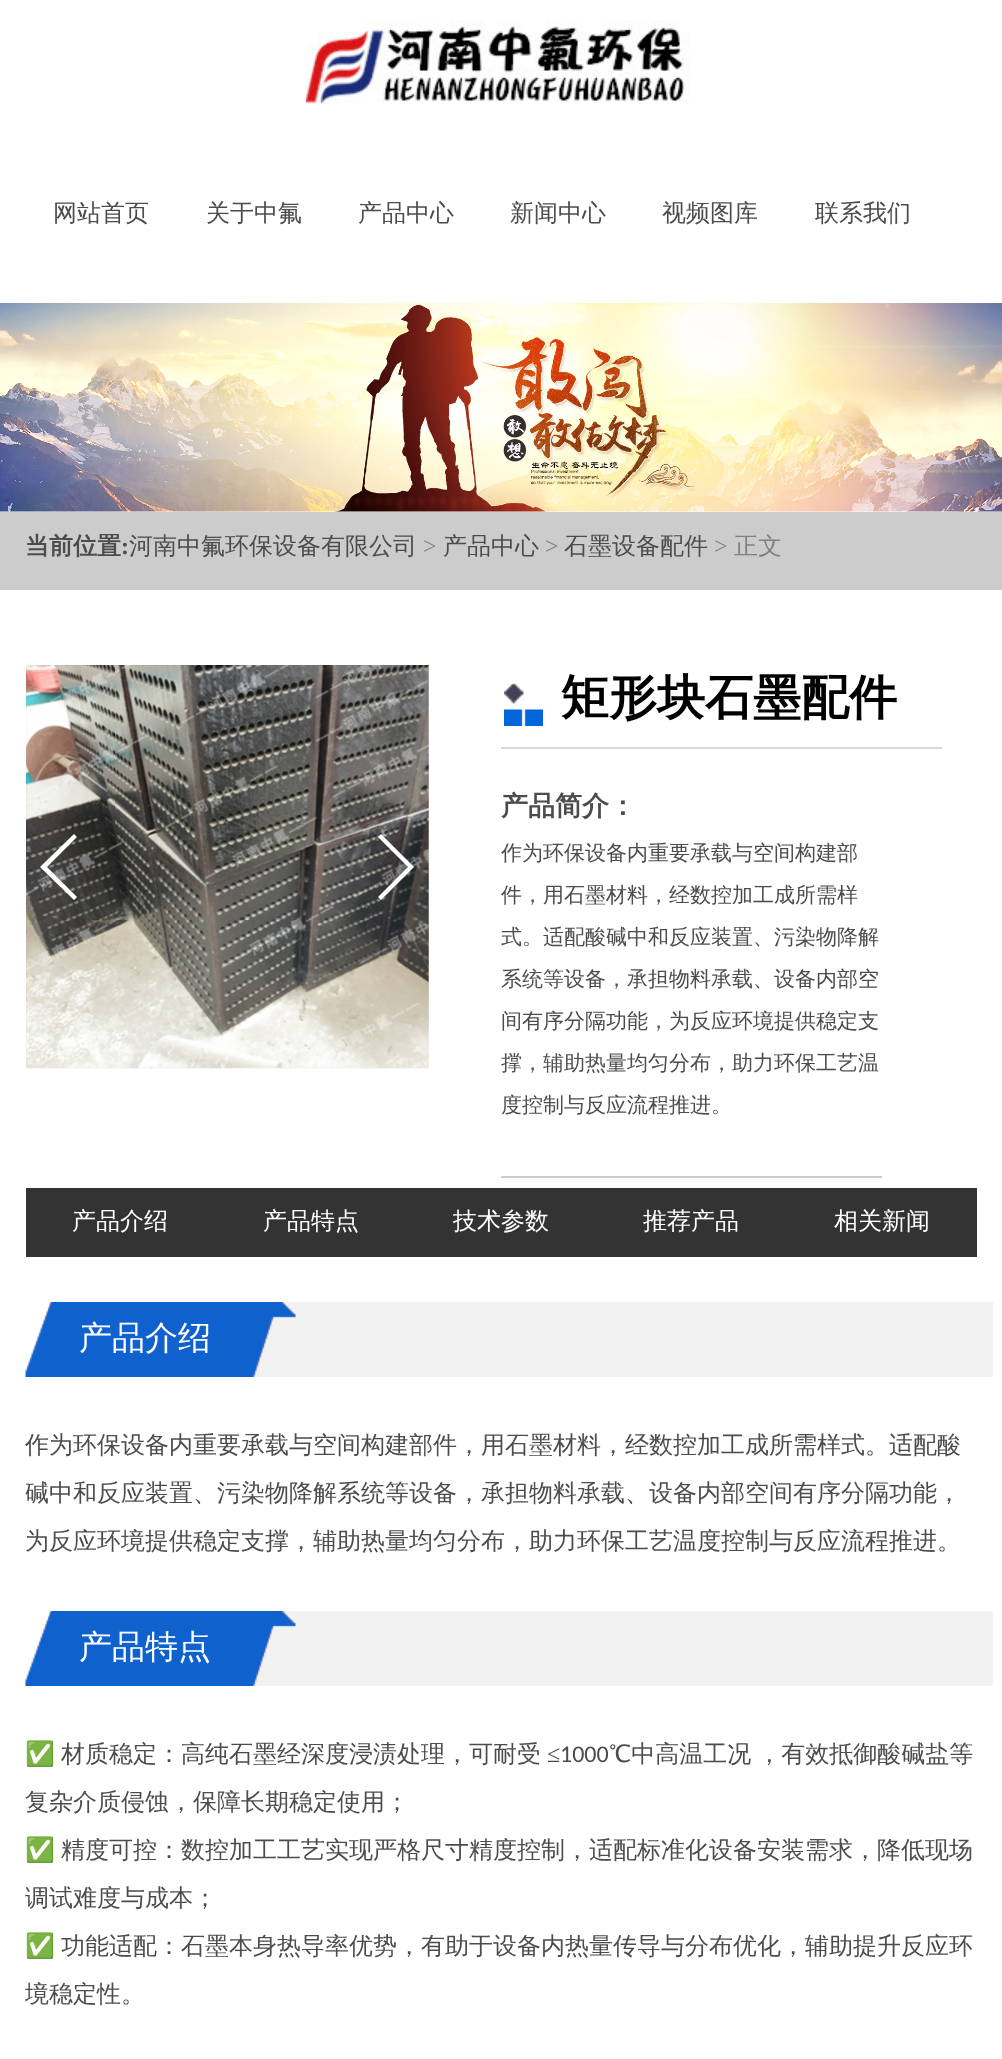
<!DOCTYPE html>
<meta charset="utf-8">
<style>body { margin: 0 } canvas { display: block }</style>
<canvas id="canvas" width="1002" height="2059"></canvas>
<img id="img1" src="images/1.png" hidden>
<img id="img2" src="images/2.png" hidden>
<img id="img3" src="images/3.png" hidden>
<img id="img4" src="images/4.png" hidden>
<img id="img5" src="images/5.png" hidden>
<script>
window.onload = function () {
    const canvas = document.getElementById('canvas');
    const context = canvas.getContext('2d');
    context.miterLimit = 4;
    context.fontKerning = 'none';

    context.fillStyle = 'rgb(255, 255, 255)';
    context.fillRect(0, 0, 1002, 2059);
    context.drawImage(document.getElementById('img1'), 306, 20, 384, 84);
    context.drawImage(document.getElementById('img2'), 0, 303, 1002, 209);
    context.fillStyle = 'rgb(204, 204, 204)';
    context.fillRect(0, 512, 1002, 78);
    context.drawImage(document.getElementById('img3'), 26, 665, 403, 404);
    context.fillStyle = 'rgb(255, 255, 255)';
    context.beginPath();
    context.moveTo(40, 867);
    context.lineTo(74, 834);
    context.lineTo(77, 837);
    context.lineTo(47, 867);
    context.lineTo(77, 897);
    context.lineTo(74, 900);
    context.closePath();
    context.fill();
    context.beginPath();
    context.moveTo(414, 867);
    context.lineTo(381, 900);
    context.lineTo(378, 897);
    context.lineTo(408, 867);
    context.lineTo(378, 837);
    context.lineTo(381, 834);
    context.closePath();
    context.fill();
    context.drawImage(document.getElementById('img4'), 504, 683, 39, 43);
    context.fillStyle = 'rgb(216, 216, 216)';
    context.fillRect(501, 747, 441, 2);
    context.fillStyle = 'rgb(204, 204, 204)';
    context.fillRect(501, 1176, 381, 2);
    context.fillStyle = 'rgb(51, 51, 51)';
    context.fillRect(26, 1188, 951, 69);
    context.fillStyle = 'rgb(242, 242, 242)';
    context.fillRect(253, 1302, 740, 75);
    context.drawImage(document.getElementById('img5'), 25, 1302, 271, 75);
    context.fillRect(253, 1611, 740, 75);
    context.drawImage(document.getElementById('img5'), 25, 1611, 271, 75);
    context.font = '500 24px WenQuanYi Zen Hei';
    context.fillStyle = 'rgb(76, 76, 76)';
    context.fillText('网站首页', 53, 221);
    context.fillText('关于中氟', 206, 221);
    context.fillText('产品中心', 358, 221);
    context.fillText('新闻中心', 510, 221);
    context.fillText('视频图库', 662, 221);
    context.fillText('联系我们', 815, 221);
    context.font = 'bold 24px WenQuanYi Zen Hei';
    context.fillText('当前位置', 25, 554);
    context.font = 'bold 24px Liberation Serif';
    context.fillText(':', 121, 554);
    context.font = '500 24px WenQuanYi Zen Hei';
    context.fillText('河南中氟环保设备有限公司', 129, 554);
    context.font = '24px Liberation Serif';
    context.fillStyle = 'rgb(128, 128, 128)';
    context.fillText('>', 423, 554);
    context.font = '500 24px WenQuanYi Zen Hei';
    context.fillStyle = 'rgb(76, 76, 76)';
    context.fillText('产品中心', 443, 554);
    context.font = '24px Liberation Serif';
    context.fillStyle = 'rgb(128, 128, 128)';
    context.fillText('>', 545, 554);
    context.font = '500 24px WenQuanYi Zen Hei';
    context.fillStyle = 'rgb(76, 76, 76)';
    context.fillText('石墨设备配件', 564, 554);
    context.font = '24px Liberation Serif';
    context.fillStyle = 'rgb(128, 128, 128)';
    context.fillText('>', 714, 554);
    context.font = '500 24px WenQuanYi Zen Hei';
    context.fillText('正文', 734, 554);
    context.font = 'bold 48px WenQuanYi Zen Hei';
    context.fillStyle = 'rgb(0, 0, 0)';
    context.fillText('矩形块石墨配件', 561, 714);
    context.font = 'bold 27px WenQuanYi Zen Hei';
    context.fillStyle = 'rgb(76, 76, 76)';
    context.fillText('产品简介：', 501, 815);
    context.font = '500 21px WenQuanYi Zen Hei';
    context.fillText('作为环保设备内重要承载与空间构建部', 501, 860);
    context.fillText('件，用石墨材料，经数控加工成所需样', 501, 902);
    context.fillText('式。适配酸碱中和反应装置、污染物降解', 501, 944);
    context.fillText('系统等设备，承担物料承载、设备内部空', 501, 986);
    context.fillText('间有序分隔功能，为反应环境提供稳定支', 501, 1028);
    context.fillText('撑，辅助热量均匀分布，助力环保工艺温', 501, 1070);
    context.fillText('度控制与反应流程推进。', 501, 1112);
    context.font = '500 24px WenQuanYi Zen Hei';
    context.fillStyle = 'rgb(255, 255, 255)';
    context.fillText('产品介绍', 72, 1229);
    context.fillText('产品特点', 263, 1229);
    context.fillText('技术参数', 453, 1229);
    context.fillText('推荐产品', 643, 1229);
    context.fillText('相关新闻', 834, 1229);
    context.font = '500 33px WenQuanYi Zen Hei';
    context.fillText('产品介绍', 79, 1349);
    context.font = '500 24px WenQuanYi Zen Hei';
    context.fillStyle = 'rgb(76, 76, 76)';
    context.fillText('作为环保设备内重要承载与空间构建部件，用石墨材料，经数控加工成所需样式。适配酸', 25, 1453);
    context.fillText('碱中和反应装置、污染物降解系统等设备，承担物料承载、设备内部空间有序分隔功能，', 25, 1501);
    context.fillText('为反应环境提供稳定支撑，辅助热量均匀分布，助力环保工艺温度控制与反应流程推进。', 25, 1549);
    context.font = '500 33px WenQuanYi Zen Hei';
    context.fillStyle = 'rgb(255, 255, 255)';
    context.fillText('产品特点', 79, 1658);
    context.font = '24px Noto Color Emoji';
    context.fillStyle = 'rgb(76, 76, 76)';
    context.fillText('✅', 25, 1762);
    context.font = '500 24px WenQuanYi Zen Hei';
    context.fillText('材质稳定：高纯石墨经深度浸渍处理，可耐受', 61, 1762);
    context.font = '24px Liberation Serif';
    context.fillText('≤', 547, 1762);
    context.font = '24px Carlito';
    context.fillText('1000', 560, 1762);
    context.wordSpacing = '-1px';
    context.font = '500 24px WenQuanYi Zen Hei';
    context.fillText('℃中高温工况 ，有效抵御酸碱盐等', 609, 1762);
    context.wordSpacing = '0px';
    context.fillText('复杂介质侵蚀，保障长期稳定使用；', 25, 1810);
    context.font = '24px Noto Color Emoji';
    context.fillText('✅', 25, 1858);
    context.font = '500 24px WenQuanYi Zen Hei';
    context.fillText('精度可控：数控加工工艺实现严格尺寸精度控制，适配标准化设备安装需求，降低现场', 61, 1858);
    context.fillText('调试难度与成本；', 25, 1906);
    context.font = '24px Noto Color Emoji';
    context.fillText('✅', 25, 1954);
    context.font = '500 24px WenQuanYi Zen Hei';
    context.fillText('功能适配：石墨本身热导率优势，有助于设备内热量传导与分布优化，辅助提升反应环', 61, 1954);
    context.fillText('境稳定性。', 25, 2002);
};
</script>
